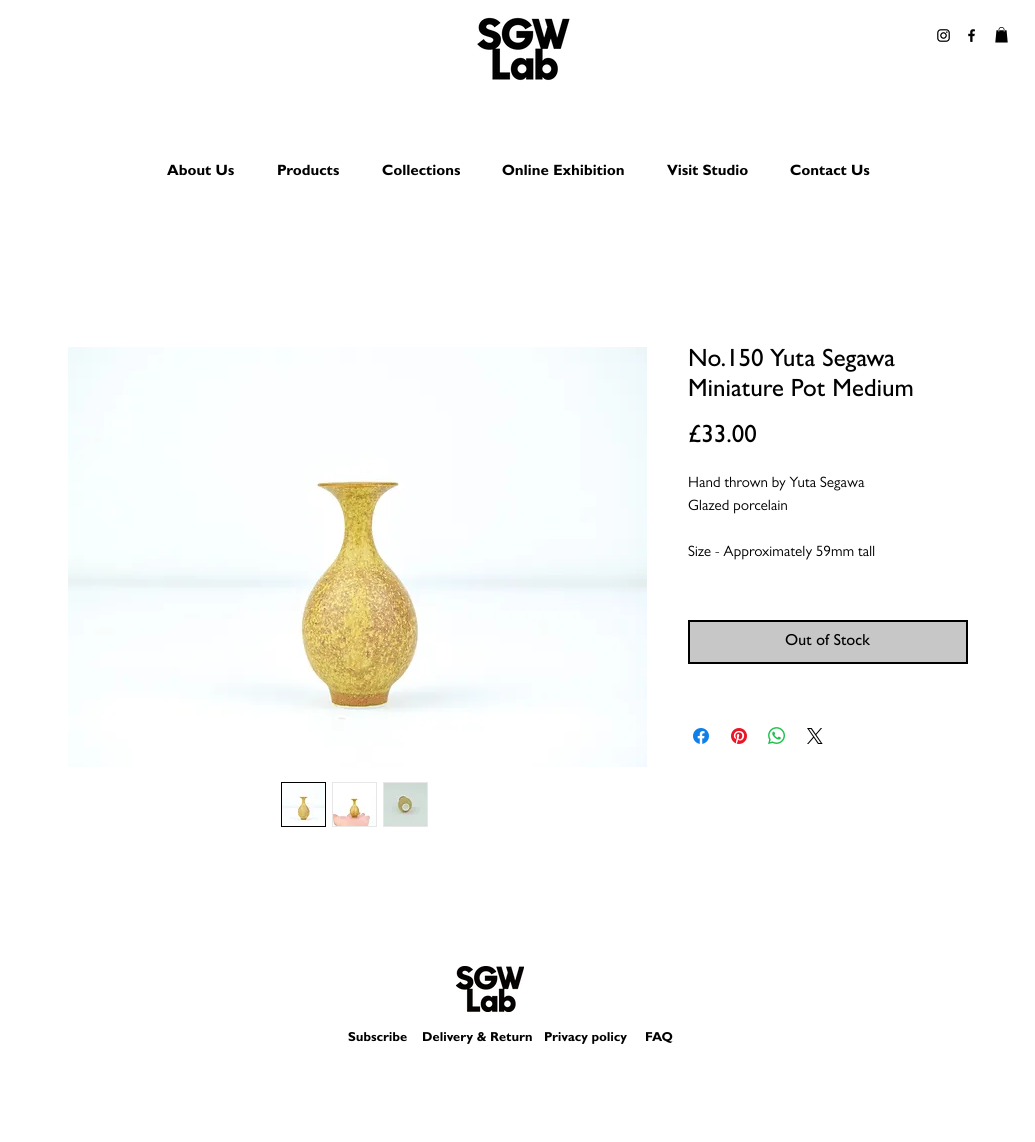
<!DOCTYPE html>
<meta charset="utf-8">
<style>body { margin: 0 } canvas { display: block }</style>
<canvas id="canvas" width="1035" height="1142"></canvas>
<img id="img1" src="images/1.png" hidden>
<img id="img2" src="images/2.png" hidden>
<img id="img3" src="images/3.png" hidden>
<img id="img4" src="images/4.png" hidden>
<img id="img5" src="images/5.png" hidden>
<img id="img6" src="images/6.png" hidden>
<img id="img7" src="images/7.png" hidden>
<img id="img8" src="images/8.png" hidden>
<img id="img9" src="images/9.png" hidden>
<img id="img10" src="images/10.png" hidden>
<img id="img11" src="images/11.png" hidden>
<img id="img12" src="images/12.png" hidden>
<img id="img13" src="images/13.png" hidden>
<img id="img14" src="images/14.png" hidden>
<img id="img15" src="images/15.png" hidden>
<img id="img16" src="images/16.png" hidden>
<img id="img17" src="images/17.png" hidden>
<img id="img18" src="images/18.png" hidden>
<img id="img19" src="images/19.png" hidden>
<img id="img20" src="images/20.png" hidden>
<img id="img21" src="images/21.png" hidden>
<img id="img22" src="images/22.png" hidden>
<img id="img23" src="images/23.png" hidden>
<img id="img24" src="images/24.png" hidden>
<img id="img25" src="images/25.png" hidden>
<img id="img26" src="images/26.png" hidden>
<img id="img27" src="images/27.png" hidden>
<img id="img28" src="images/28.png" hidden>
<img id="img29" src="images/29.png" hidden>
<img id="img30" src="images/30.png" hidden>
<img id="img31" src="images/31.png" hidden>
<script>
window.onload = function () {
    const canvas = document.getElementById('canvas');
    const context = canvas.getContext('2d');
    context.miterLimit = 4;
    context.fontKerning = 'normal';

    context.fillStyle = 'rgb(255, 255, 255)';
    context.fillRect(0, 0, 1035, 1142);
    context.drawImage(document.getElementById('img1'), 477, 17, 93, 64);
    context.drawImage(document.getElementById('img2'), 937, 29, 13, 13);
    context.drawImage(document.getElementById('img3'), 968, 29, 7, 13);
    context.drawImage(document.getElementById('img4'), 995, 27, 13, 16);
    context.drawImage(document.getElementById('img5'), 167, 164, 67, 12);
    context.drawImage(document.getElementById('img6'), 278, 164, 61, 12);
    context.drawImage(document.getElementById('img7'), 382, 164, 78, 12);
    context.drawImage(document.getElementById('img8'), 502, 164, 122, 12);
    context.drawImage(document.getElementById('img9'), 667, 164, 81, 12);
    context.drawImage(document.getElementById('img10'), 790, 164, 80, 12);
    context.drawImage(document.getElementById('img11'), 68, 347, 579, 420);
    context.strokeStyle = 'rgb(0, 0, 0)';
    context.strokeRect(281.5, 782.5, 44, 44);
    context.drawImage(document.getElementById('img12'), 282, 783, 43, 40);
    context.strokeStyle = 'rgb(232, 230, 230)';
    context.strokeRect(332.5, 782.5, 44, 44);
    context.drawImage(document.getElementById('img13'), 333, 796, 43, 30);
    context.strokeRect(383.5, 782.5, 44, 44);
    context.drawImage(document.getElementById('img14'), 384, 783, 43, 43);
    context.drawImage(document.getElementById('img15'), 689, 348, 74, 19);
    context.drawImage(document.getElementById('img16'), 770, 348, 125, 24);
    context.drawImage(document.getElementById('img17'), 689, 378, 224, 19);
    context.drawImage(document.getElementById('img18'), 689, 424, 67, 19);
    context.drawImage(document.getElementById('img19'), 689, 476, 176, 15);
    context.drawImage(document.getElementById('img20'), 688, 499, 99, 15);
    context.drawImage(document.getElementById('img21'), 688, 545, 187, 15);
    context.fillStyle = 'rgb(199, 199, 199)';
    context.beginPath();
    context.rect(689, 621, 278, 42);
    context.fill();
    context.strokeStyle = 'rgb(0, 0, 0)';
    context.lineWidth = 2;
    context.stroke();
    context.drawImage(document.getElementById('img22'), 785, 633, 85, 13);
    context.drawImage(document.getElementById('img23'), 693, 728, 16, 16);
    context.drawImage(document.getElementById('img24'), 731, 728, 16, 16);
    context.drawImage(document.getElementById('img25'), 768, 727, 17, 17);
    context.drawImage(document.getElementById('img26'), 807, 728, 16, 16);
    context.drawImage(document.getElementById('img27'), 456, 966, 68, 46);
    context.drawImage(document.getElementById('img28'), 348, 1032, 59, 10);
    context.drawImage(document.getElementById('img29'), 423, 1032, 109, 12);
    context.drawImage(document.getElementById('img30'), 545, 1032, 82, 12);
    context.drawImage(document.getElementById('img31'), 646, 1032, 27, 11);
};
</script>
